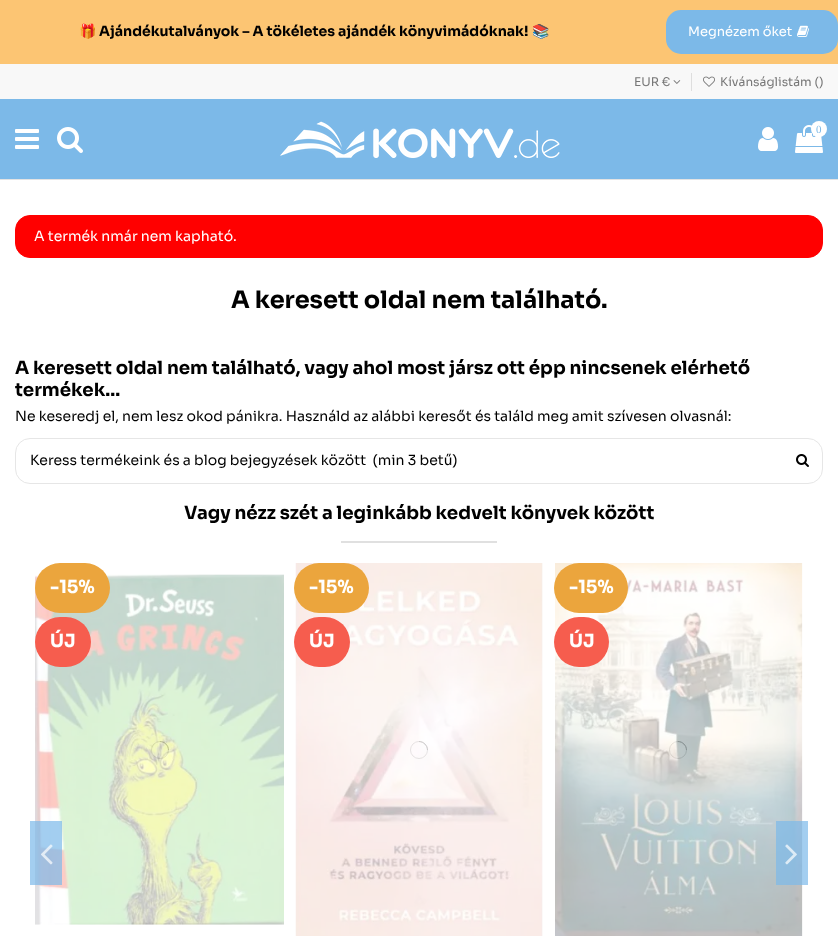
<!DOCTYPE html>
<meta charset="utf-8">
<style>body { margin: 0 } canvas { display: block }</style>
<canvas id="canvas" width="838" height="936"></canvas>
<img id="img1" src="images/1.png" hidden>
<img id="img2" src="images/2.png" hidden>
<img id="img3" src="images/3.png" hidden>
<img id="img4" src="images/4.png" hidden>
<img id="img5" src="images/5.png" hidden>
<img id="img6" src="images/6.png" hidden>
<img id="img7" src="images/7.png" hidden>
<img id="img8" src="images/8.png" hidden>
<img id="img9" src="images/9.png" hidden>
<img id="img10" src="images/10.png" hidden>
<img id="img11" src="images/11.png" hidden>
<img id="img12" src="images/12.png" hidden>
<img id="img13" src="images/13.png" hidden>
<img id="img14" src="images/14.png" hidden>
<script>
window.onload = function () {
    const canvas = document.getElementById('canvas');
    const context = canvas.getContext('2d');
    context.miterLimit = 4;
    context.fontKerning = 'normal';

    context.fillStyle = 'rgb(255, 255, 255)';
    context.fillRect(0, 0, 838, 936);
    context.fillStyle = 'rgb(124, 185, 232)';
    context.fillRect(0, 99, 838, 80);
    context.fillStyle = 'rgb(252, 197, 115)';
    context.fillRect(0, 0, 838, 64);
    context.fillStyle = 'rgb(124, 185, 232)';
    context.beginPath();
    context.roundRect(667, 11, 170, 42, 14);
    context.fill();
    context.strokeStyle = 'rgb(124, 185, 232)';
    context.lineWidth = 2;
    context.stroke();
    context.drawImage(document.getElementById('img1'), 797, 25, 12, 12);
    context.fillStyle = 'rgb(248, 248, 248)';
    context.fillRect(0, 64, 838, 35);
    context.drawImage(document.getElementById('img2'), 673, 80, 8, 4);
    context.fillStyle = 'rgb(222, 222, 222)';
    context.fillRect(691, 73, 1, 18);
    context.drawImage(document.getElementById('img3'), 703, 76, 12, 11);
    context.fillStyle = 'rgb(227, 227, 227)';
    context.fillRect(0, 179, 838, 1);
    context.drawImage(document.getElementById('img4'), 15, 129, 24, 20);
    context.drawImage(document.getElementById('img5'), 57, 127, 26, 26);
    context.drawImage(document.getElementById('img6'), 280, 121, 280, 37);
    context.drawImage(document.getElementById('img7'), 758, 127, 20, 24);
    context.drawImage(document.getElementById('img8'), 795, 125, 28, 28);
    context.fillStyle = 'rgb(255, 255, 255)';
    context.beginPath();
    context.arc(819, 129, 8, 0, 2 * Math.PI);
    context.fill();
    context.fillStyle = 'rgb(255, 0, 0)';
    context.beginPath();
    context.roundRect(15.5, 215.5, 807, 42, 14.5);
    context.fill();
    context.strokeStyle = 'rgb(255, 0, 0)';
    context.lineWidth = 1;
    context.stroke();
    context.beginPath();
    context.roundRect(15.5, 438.5, 807, 45, 14.5);
    context.strokeStyle = 'rgb(230, 230, 230)';
    context.stroke();
    context.drawImage(document.getElementById('img9'), 796, 454, 13, 13);
    context.fillStyle = 'rgb(224, 224, 224)';
    context.fillRect(341, 541, 156, 2);
    context.beginPath();
    context.arc(160, 750, 8.5, 0, 2 * Math.PI);
    context.strokeStyle = 'rgb(217, 217, 217)';
    context.lineWidth = 0.9;
    context.stroke();
    context.beginPath();
    context.moveTo(168.5, 750);
    context.bezierCurveTo(168.5, 745.5, 164.5, 741.5, 160, 741.5);
    context.strokeStyle = 'rgb(179, 179, 179)';
    context.stroke();
    context.drawImage(document.getElementById('img10'), 35, 574, 249, 351);
    context.fillStyle = 'rgb(235, 165, 61)';
    context.beginPath();
    context.roundRect(35, 563, 75, 50, 25);
    context.fill();
    context.fillStyle = 'rgb(246, 93, 78)';
    context.beginPath();
    context.roundRect(35, 617, 56, 50, 25);
    context.fill();
    context.beginPath();
    context.arc(419, 750, 8.5, 0, 2 * Math.PI);
    context.strokeStyle = 'rgb(217, 217, 217)';
    context.stroke();
    context.beginPath();
    context.moveTo(427.5, 750);
    context.bezierCurveTo(427.5, 745.5, 423.5, 741.5, 419, 741.5);
    context.strokeStyle = 'rgb(179, 179, 179)';
    context.stroke();
    context.drawImage(document.getElementById('img11'), 295, 563, 248, 373);
    context.fillStyle = 'rgb(235, 165, 61)';
    context.beginPath();
    context.roundRect(294, 563, 75, 50, 25);
    context.fill();
    context.fillStyle = 'rgb(246, 93, 78)';
    context.beginPath();
    context.roundRect(294, 617, 56, 50, 25);
    context.fill();
    context.beginPath();
    context.arc(678, 750, 8.5, 0, 2 * Math.PI);
    context.strokeStyle = 'rgb(217, 217, 217)';
    context.stroke();
    context.beginPath();
    context.moveTo(686.5, 750);
    context.bezierCurveTo(686.5, 745.5, 682.5, 741.5, 678, 741.5);
    context.strokeStyle = 'rgb(179, 179, 179)';
    context.stroke();
    context.drawImage(document.getElementById('img12'), 555, 563, 248, 373);
    context.fillStyle = 'rgb(235, 165, 61)';
    context.beginPath();
    context.roundRect(554, 563, 74, 50, 25);
    context.fill();
    context.fillStyle = 'rgb(246, 93, 78)';
    context.beginPath();
    context.roundRect(554, 617, 55, 50, 25);
    context.fill();
    context.fillStyle = 'rgba(124, 185, 233, 0.7)';
    context.fillRect(30, 821, 32, 64);
    context.drawImage(document.getElementById('img13'), 41, 844, 12, 21);
    context.fillRect(776, 821, 32, 64);
    context.drawImage(document.getElementById('img14'), 785, 844, 12, 21);
    context.font = 'bold 14px Noto Color Emoji';
    context.fillStyle = 'rgb(0, 0, 0)';
    context.fillText('🎁', 79, 36);
    context.font = 'bold 14px Sora';
    context.fillText('Ajándékutalványok – A tökéletes ajándék könyvimádóknak!', 99, 36);
    context.font = 'bold 14px Noto Color Emoji';
    context.fillText('📚', 532, 36);
    context.font = '13px Sora';
    context.fillStyle = 'rgb(255, 255, 255)';
    context.fillText('Megnézem őket', 688, 36);
    context.font = '12px Sora';
    context.fillStyle = 'rgb(119, 119, 119)';
    context.fillText('EUR €', 634, 86);
    context.fillText('Kívánságlistám ()', 720, 86);
    context.font = '11px Liberation Serif';
    context.fillStyle = 'rgb(124, 185, 232)';
    context.fillText('0', 816, 133);
    context.font = '14px Sora';
    context.fillStyle = 'rgb(255, 255, 255)';
    context.fillText('A termék nmár nem kapható.', 34, 241);
    context.font = 'bold 24px Sora';
    context.fillStyle = 'rgb(0, 0, 0)';
    context.fillText('A keresett oldal nem található.', 231, 308);
    context.font = 'bold 18.2px Sora';
    context.fillText('A keresett oldal nem található, vagy ahol most jársz ott épp nincsenek elérhető', 15, 374);
    context.fillText('termékek...', 15, 396);
    context.font = '14px Sora';
    context.fillText('Ne keseredj el, nem lesz okod pánikra. Használd az alábbi keresőt és találd meg amit szívesen olvasnál:', 15, 421);
    context.fillText('Keress termékeink és a blog bejegyzések között  (min 3 betű)', 30, 465);
    context.font = 'bold 18.2px Sora';
    context.fillText('Vagy nézz szét a leginkább kedvelt könyvek között', 184, 519);
    context.font = 'bold 18px Sora';
    context.fillStyle = 'rgb(255, 255, 255)';
    context.fillText('-15%', 50, 593);
    context.fillText('ÚJ', 50, 647);
    context.fillText('-15%', 309, 593);
    context.fillText('ÚJ', 309, 647);
    context.fillText('-15%', 569, 593);
    context.fillText('ÚJ', 569, 647);
};
</script>
